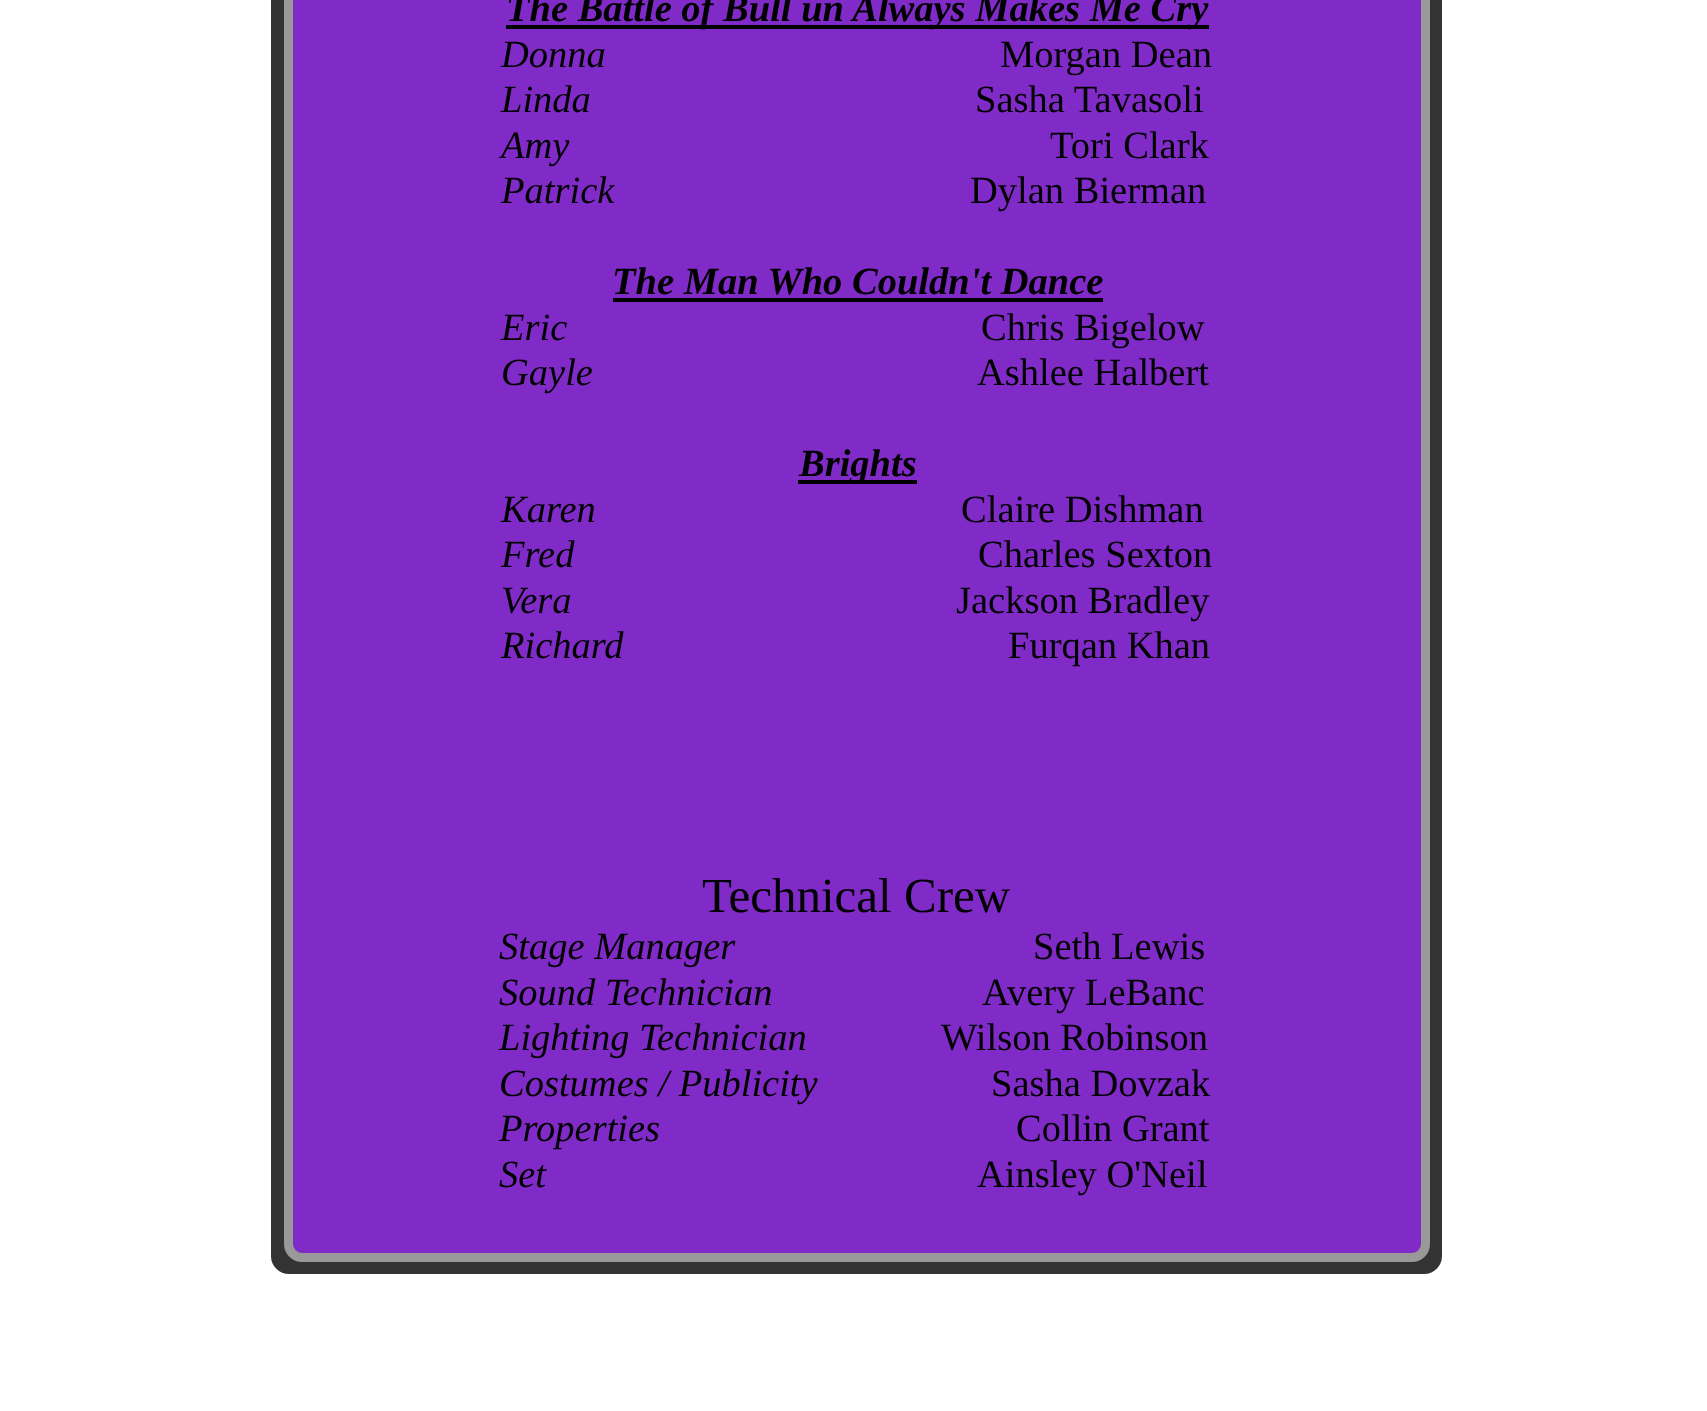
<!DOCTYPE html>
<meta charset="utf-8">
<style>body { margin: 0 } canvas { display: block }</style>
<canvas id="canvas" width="1707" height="1411"></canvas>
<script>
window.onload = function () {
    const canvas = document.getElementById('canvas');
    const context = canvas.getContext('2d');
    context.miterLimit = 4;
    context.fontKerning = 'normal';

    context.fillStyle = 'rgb(255, 255, 255)';
    context.fillRect(0, 0, 1707, 1411);
    context.fillStyle = 'rgb(51, 51, 51)';
    context.beginPath();
    context.roundRect(271, -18, 1171, 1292, 18);
    context.fill();
    context.fillStyle = 'rgb(128, 42, 199)';
    context.beginPath();
    context.roundRect(288.5, -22.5, 1137, 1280, 13.5);
    context.fill();
    context.strokeStyle = 'rgb(153, 153, 153)';
    context.lineWidth = 9;
    context.stroke();
    context.fillStyle = 'rgb(0, 0, 0)';
    context.fillRect(506, 25, 703, 4);
    context.fillRect(613, 298, 490, 4);
    context.fillRect(798, 480, 119, 4);
    context.font = 'italic bold 38.5px Liberation Serif';
    context.fillText('The Battle of Bull un Always Makes Me Cry', 506, 21);
    context.font = 'italic 38.5px Liberation Serif';
    context.fillText('Donna', 501, 67);
    context.font = '38.5px Liberation Serif';
    context.fillText('Morgan Dean', 1000, 67);
    context.font = 'italic 38.5px Liberation Serif';
    context.fillText('Linda', 501, 112);
    context.font = '38.5px Liberation Serif';
    context.fillText('Sasha Tavasoli', 975, 112);
    context.font = 'italic 38.5px Liberation Serif';
    context.fillText('Amy', 501, 158);
    context.font = '38.5px Liberation Serif';
    context.fillText('Tori Clark', 1050, 158);
    context.font = 'italic 38.5px Liberation Serif';
    context.fillText('Patrick', 501, 203);
    context.font = '38.5px Liberation Serif';
    context.fillText('Dylan Bierman', 970, 203);
    context.font = 'italic bold 38.5px Liberation Serif';
    context.fillText('The Man Who Couldn\'t Dance', 612, 294);
    context.font = 'italic 38.5px Liberation Serif';
    context.fillText('Eric', 501, 340);
    context.font = '38.5px Liberation Serif';
    context.fillText('Chris Bigelow', 981, 340);
    context.font = 'italic 38.5px Liberation Serif';
    context.fillText('Gayle', 501, 385);
    context.font = '38.5px Liberation Serif';
    context.fillText('Ashlee Halbert', 977, 385);
    context.font = 'italic bold 38.5px Liberation Serif';
    context.fillText('Brights', 799, 476);
    context.font = 'italic 38.5px Liberation Serif';
    context.fillText('Karen', 501, 522);
    context.font = '38.5px Liberation Serif';
    context.fillText('Claire Dishman', 961, 522);
    context.font = 'italic 38.5px Liberation Serif';
    context.fillText('Fred', 501, 567);
    context.font = '38.5px Liberation Serif';
    context.fillText('Charles Sexton', 978, 567);
    context.font = 'italic 38.5px Liberation Serif';
    context.fillText('Vera', 501, 613);
    context.font = '38.5px Liberation Serif';
    context.fillText('Jackson Bradley', 956, 613);
    context.font = 'italic 38.5px Liberation Serif';
    context.fillText('Richard', 501, 658);
    context.font = '38.5px Liberation Serif';
    context.fillText('Furqan Khan', 1008, 658);
    context.font = '49px Liberation Serif';
    context.fillText('Technical Crew', 702, 912);
    context.font = 'italic 38.5px Liberation Serif';
    context.fillText('Stage Manager', 499, 959);
    context.font = '38.5px Liberation Serif';
    context.fillText('Seth Lewis', 1033, 959);
    context.font = 'italic 38.5px Liberation Serif';
    context.fillText('Sound Technician', 499, 1005);
    context.font = '38.5px Liberation Serif';
    context.fillText('Avery LeBanc', 982, 1005);
    context.font = 'italic 38.5px Liberation Serif';
    context.fillText('Lighting Technician', 499, 1050);
    context.font = '38.5px Liberation Serif';
    context.fillText('Wilson Robinson', 941, 1050);
    context.font = 'italic 38.5px Liberation Serif';
    context.fillText('Costumes / Publicity', 499, 1096);
    context.font = '38.5px Liberation Serif';
    context.fillText('Sasha Dovzak', 991, 1096);
    context.font = 'italic 38.5px Liberation Serif';
    context.fillText('Properties', 499, 1141);
    context.font = '38.5px Liberation Serif';
    context.fillText('Collin Grant', 1016, 1141);
    context.font = 'italic 38.5px Liberation Serif';
    context.fillText('Set', 499, 1187);
    context.font = '38.5px Liberation Serif';
    context.fillText('Ainsley O\'Neil', 977, 1187);
};
</script>
